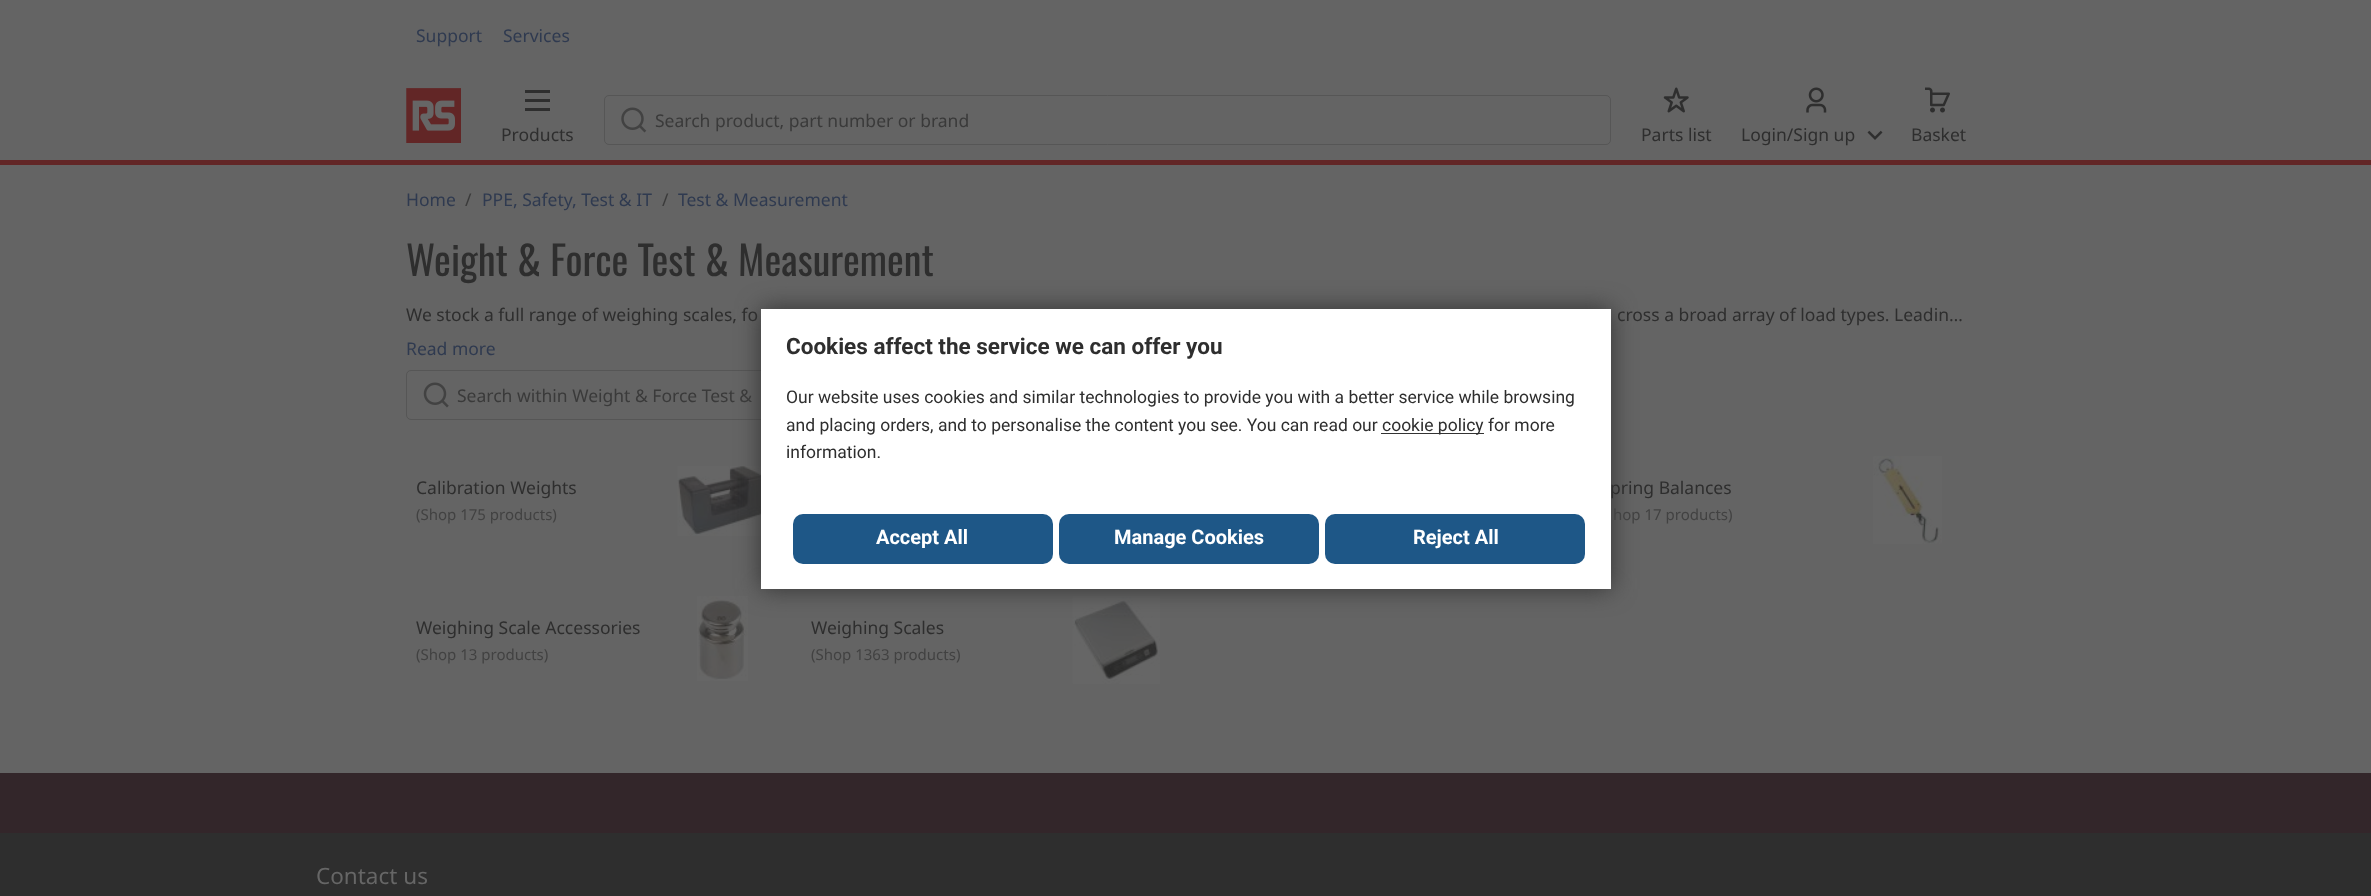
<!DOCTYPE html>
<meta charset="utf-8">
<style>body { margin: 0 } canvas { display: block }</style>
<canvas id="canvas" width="2371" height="896"></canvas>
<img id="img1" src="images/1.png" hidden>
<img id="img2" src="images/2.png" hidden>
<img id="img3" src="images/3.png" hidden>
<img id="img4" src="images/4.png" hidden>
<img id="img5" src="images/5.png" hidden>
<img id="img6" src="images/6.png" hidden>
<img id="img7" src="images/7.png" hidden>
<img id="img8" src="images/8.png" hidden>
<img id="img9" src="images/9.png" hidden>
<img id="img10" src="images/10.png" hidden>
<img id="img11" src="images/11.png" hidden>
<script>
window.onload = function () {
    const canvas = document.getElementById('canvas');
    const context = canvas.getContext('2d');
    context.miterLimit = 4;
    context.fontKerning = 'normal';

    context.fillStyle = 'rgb(100, 100, 100)';
    context.fillRect(0, 0, 2371, 896);
    context.fillStyle = 'rgb(98, 38, 38)';
    context.fillRect(0, 160, 2371, 5);
    context.drawImage(document.getElementById('img1'), 406, 88, 55, 55);
    context.beginPath();
    context.roundRect(604.5, 95.5, 1006, 49, 4.5);
    context.strokeStyle = 'rgb(86, 86, 86)';
    context.stroke();
    context.drawImage(document.getElementById('img2'), 621, 107, 26, 26);
    context.fillStyle = 'rgb(46, 46, 46)';
    context.fillRect(525, 90, 25, 3);
    context.fillRect(525, 99, 25, 3);
    context.fillRect(525, 108, 25, 3);
    context.drawImage(document.getElementById('img3'), 1663, 87, 26, 26);
    context.drawImage(document.getElementById('img4'), 1806, 87, 21, 26);
    context.drawImage(document.getElementById('img5'), 1867, 130, 16, 10);
    context.drawImage(document.getElementById('img6'), 1925, 87, 25, 26);
    context.beginPath();
    context.roundRect(406.5, 370.5, 489, 49, 4.5);
    context.stroke();
    context.drawImage(document.getElementById('img7'), 423, 382, 26, 26);
    context.drawImage(document.getElementById('img8'), 677, 466, 84, 70);
    context.drawImage(document.getElementById('img9'), 1873, 456, 69, 88);
    context.drawImage(document.getElementById('img10'), 697, 596, 51, 85);
    context.drawImage(document.getElementById('img11'), 1072, 596, 88, 88);
    context.fillStyle = 'rgb(51, 38, 42)';
    context.fillRect(0, 773, 2371, 60);
    context.fillStyle = 'rgb(46, 46, 46)';
    context.fillRect(0, 833, 2371, 63);
    context.fillStyle = 'rgb(51, 51, 51)';
    context.filter = 'blur(12.5px)';
    context.beginPath();
    context.rect(761, 309, 850, 280);
    context.fill();
    context.filter = 'none';
    context.fillStyle = 'rgb(255, 255, 255)';
    context.fillRect(761, 309, 850, 280);
    context.fillStyle = 'rgb(51, 51, 51)';
    context.fillRect(1381, 433, 103, 1);
    context.fillStyle = 'rgb(30, 87, 135)';
    context.beginPath();
    context.roundRect(793, 514, 260, 50, 10);
    context.fill();
    context.beginPath();
    context.roundRect(1059, 514, 260, 50, 10);
    context.fill();
    context.beginPath();
    context.roundRect(1325, 514, 260, 50, 10);
    context.fill();
    context.font = '17.5px Noto Sans';
    context.fillStyle = 'rgb(47, 58, 80)';
    context.fillText('Support', 416, 42);
    context.fillText('Services', 503, 42);
    context.fillStyle = 'rgb(58, 58, 58)';
    context.fillText('Search product, part number or brand', 655, 127);
    context.fillStyle = 'rgb(46, 46, 46)';
    context.fillText('Products', 501, 141);
    context.fillText('Parts list', 1641, 141);
    context.fillText('Login/Sign up', 1741, 141);
    context.fillText('Basket', 1911, 141);
    context.fillStyle = 'rgb(47, 58, 80)';
    context.fillText('Home', 406, 206);
    context.fillStyle = 'rgb(58, 58, 58)';
    context.fillText('/', 465, 206);
    context.fillStyle = 'rgb(47, 58, 80)';
    context.fillText('PPE, Safety, Test & IT', 482, 206);
    context.fillStyle = 'rgb(58, 58, 58)';
    context.fillText('/', 662, 206);
    context.fillStyle = 'rgb(47, 58, 80)';
    context.fillText('Test & Measurement', 678, 206);
    context.font = '40px Oswald';
    context.fillStyle = 'rgb(46, 46, 46)';
    context.fillText('Weight & Force Test & Measurement', 406, 276);
    context.font = '17.5px Noto Sans';
    context.fillText('We stock a full range of weighing scales, fo', 406, 321);
    context.fillText('cross a broad array of load types. Leadin…', 1617, 321);
    context.fillStyle = 'rgb(47, 58, 80)';
    context.fillText('Read more', 406, 355);
    context.fillStyle = 'rgb(58, 58, 58)';
    context.fillText('Search within Weight & Force Test &', 457, 402);
    context.fillStyle = 'rgb(46, 46, 46)';
    context.fillText('Calibration Weights', 416, 494);
    context.font = '15px Noto Sans';
    context.fillStyle = 'rgb(66, 66, 66)';
    context.fillText('(Shop 175 products)', 416, 520);
    context.font = '17.5px Noto Sans';
    context.fillStyle = 'rgb(46, 46, 46)';
    context.fillText('pring Balances', 1610, 494);
    context.font = '15px Noto Sans';
    context.fillStyle = 'rgb(66, 66, 66)';
    context.fillText('hop 17 products)', 1613, 520);
    context.font = '17.5px Noto Sans';
    context.fillStyle = 'rgb(46, 46, 46)';
    context.fillText('Weighing Scale Accessories', 416, 634);
    context.font = '15px Noto Sans';
    context.fillStyle = 'rgb(66, 66, 66)';
    context.fillText('(Shop 13 products)', 416, 660);
    context.font = '17.5px Noto Sans';
    context.fillStyle = 'rgb(46, 46, 46)';
    context.fillText('Weighing Scales', 811, 634);
    context.font = '15px Noto Sans';
    context.fillStyle = 'rgb(66, 66, 66)';
    context.fillText('(Shop 1363 products)', 811, 660);
    context.font = '22.5px Noto Sans';
    context.fillStyle = 'rgb(102, 102, 102)';
    context.fillText('Contact us', 316, 884);
    context.font = 'bold 22.5px Roboto';
    context.fillStyle = 'rgb(46, 46, 46)';
    context.fillText('Cookies affect the service we can offer you', 786, 354);
    context.font = '17.5px Roboto';
    context.fillText('Our website uses cookies and similar technologies to provide you with a better service while browsing', 786, 403);
    context.fillText('and placing orders, and to personalise the content you see. You can read our', 786, 431);
    context.fillText('cookie policy for more', 1382, 431);
    context.fillText('information.', 786, 458);
    context.font = 'bold 20px Roboto';
    context.fillStyle = 'rgb(255, 255, 255)';
    context.fillText('Accept All', 876, 544);
    context.fillText('Manage Cookies', 1114, 544);
    context.fillText('Reject All', 1413, 544);
};
</script>
